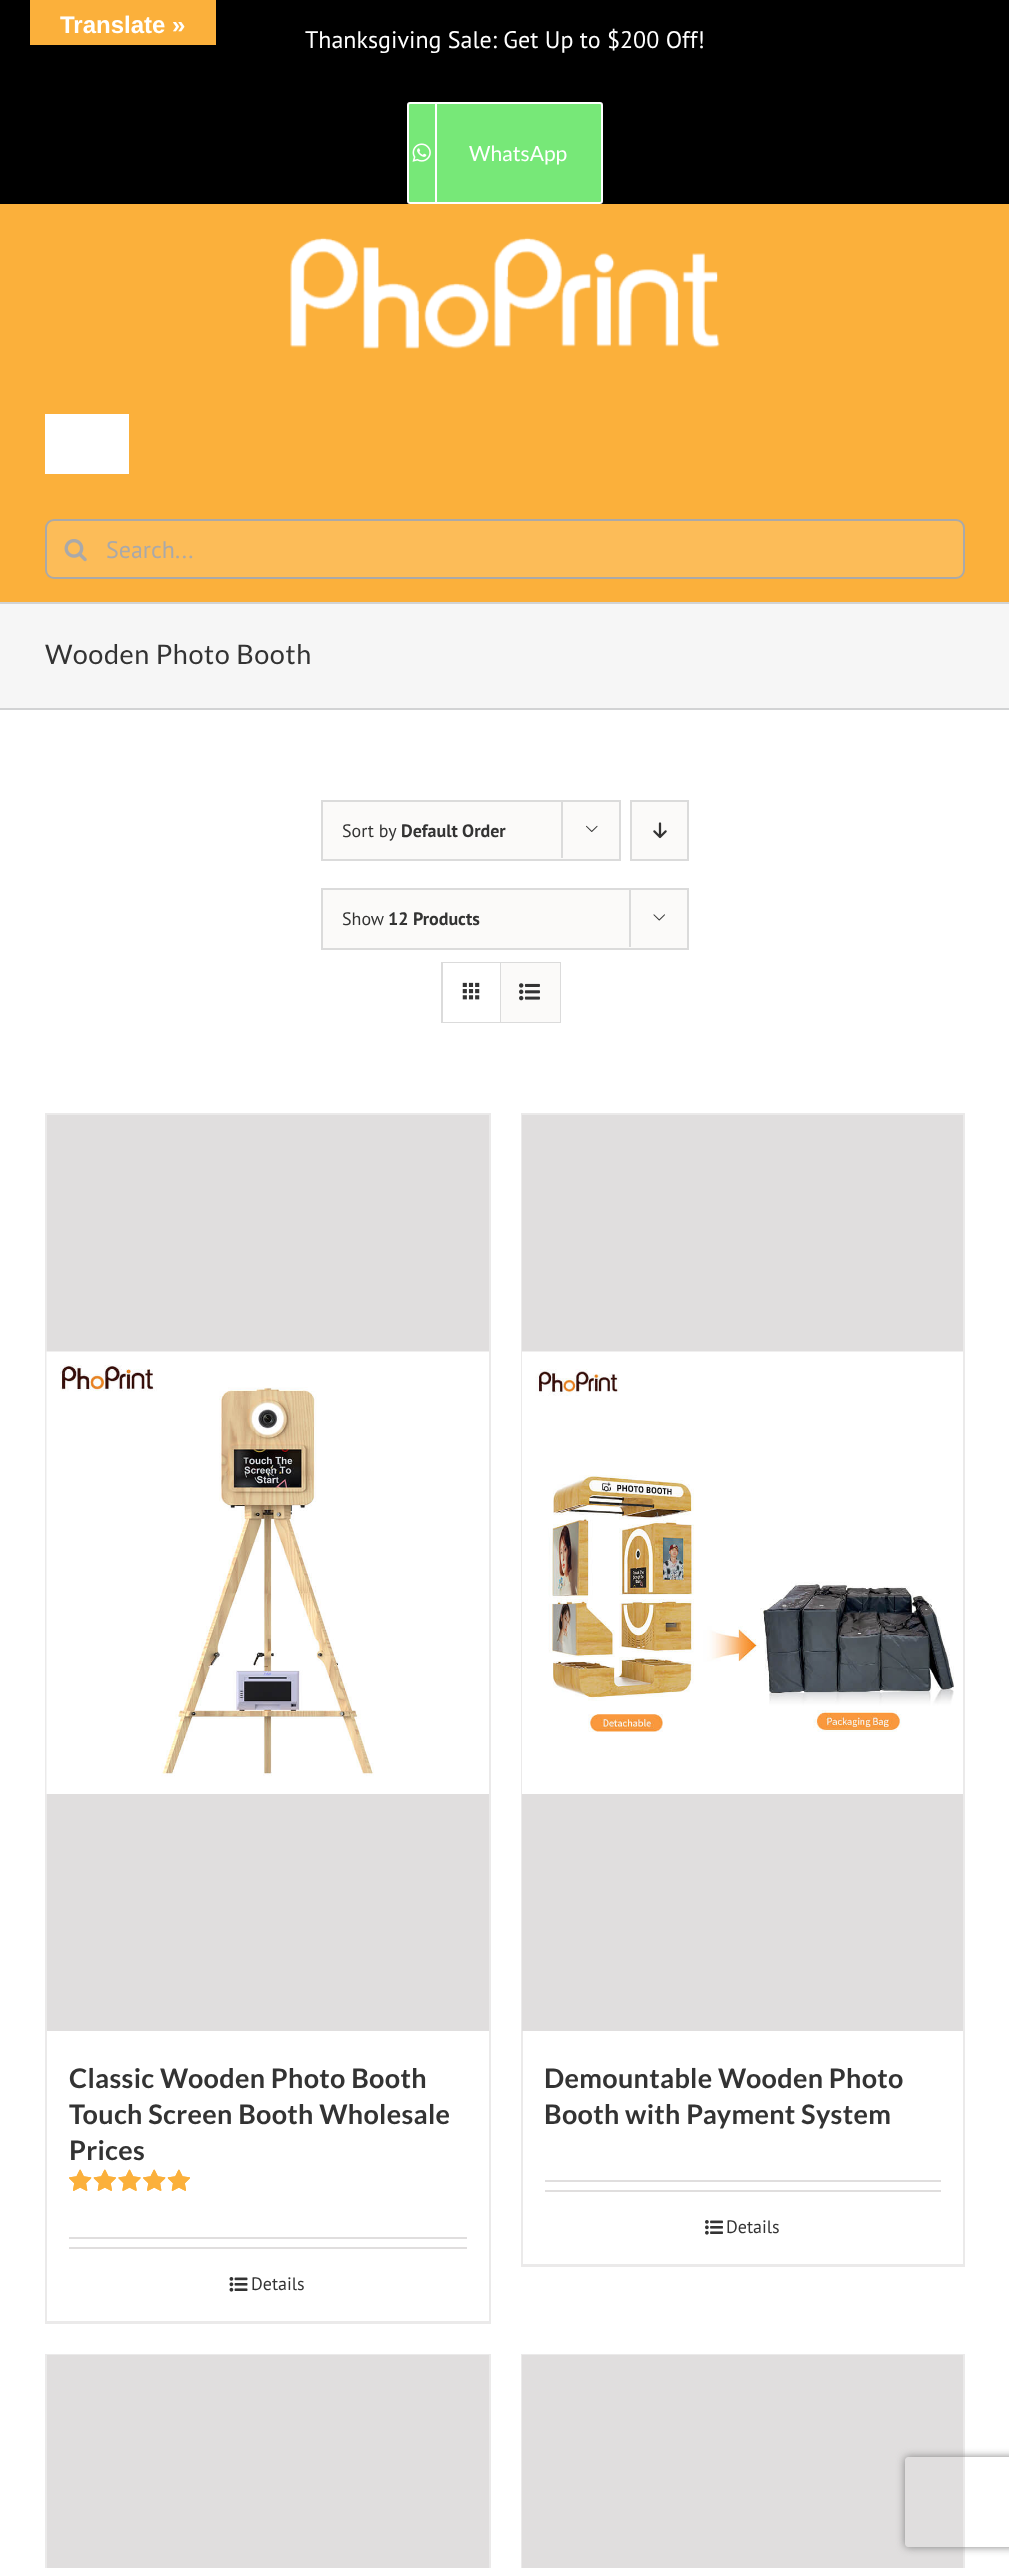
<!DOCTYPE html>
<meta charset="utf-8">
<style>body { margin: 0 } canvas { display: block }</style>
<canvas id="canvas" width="1009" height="2568"></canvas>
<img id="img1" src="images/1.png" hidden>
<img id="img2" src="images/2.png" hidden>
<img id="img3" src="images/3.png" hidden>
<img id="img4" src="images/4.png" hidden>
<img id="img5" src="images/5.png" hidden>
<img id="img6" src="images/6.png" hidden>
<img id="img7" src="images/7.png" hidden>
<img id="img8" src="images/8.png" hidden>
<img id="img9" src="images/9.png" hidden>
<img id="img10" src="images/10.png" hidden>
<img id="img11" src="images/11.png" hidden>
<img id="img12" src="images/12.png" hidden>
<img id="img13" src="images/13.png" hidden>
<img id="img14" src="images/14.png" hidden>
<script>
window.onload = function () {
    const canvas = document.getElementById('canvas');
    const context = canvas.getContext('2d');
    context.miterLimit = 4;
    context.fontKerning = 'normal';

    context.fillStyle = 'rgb(255, 255, 255)';
    context.fillRect(0, 0, 1009, 2568);
    context.fillStyle = 'rgb(0, 0, 0)';
    context.fillRect(0, 0, 1009, 204);
    context.fillStyle = 'rgb(251, 176, 59)';
    context.fillRect(30, 0, 186, 45);
    context.fillStyle = 'rgb(119, 232, 120)';
    context.beginPath();
    context.roundRect(408, 103, 194, 100, 2);
    context.fill();
    context.strokeStyle = 'rgb(255, 255, 255)';
    context.lineWidth = 2;
    context.stroke();
    context.fillStyle = 'rgb(255, 255, 255)';
    context.fillRect(435, 104, 2, 99);
    context.drawImage(document.getElementById('img1'), 412, 143, 19, 19);
    context.fillStyle = 'rgb(251, 176, 59)';
    context.fillRect(0, 204, 1009, 398);
    context.drawImage(document.getElementById('img2'), 290, 237, 430, 112);
    context.fillStyle = 'rgb(255, 255, 255)';
    context.fillRect(45, 414, 84, 60);
    context.fillStyle = 'rgb(252, 188, 88)';
    context.beginPath();
    context.roundRect(46, 520, 918, 58, 8);
    context.fill();
    context.strokeStyle = 'rgb(170, 169, 169)';
    context.stroke();
    context.drawImage(document.getElementById('img3'), 64, 539, 23, 23);
    context.fillStyle = 'rgb(246, 246, 246)';
    context.fillRect(0, 604, 1009, 104);
    context.fillStyle = 'rgb(210, 211, 212)';
    context.fillRect(0, 602, 1009, 2);
    context.fillRect(0, 708, 1009, 2);
    context.fillStyle = 'rgb(251, 250, 249)';
    context.beginPath();
    context.rect(322, 801, 298, 59);
    context.fill();
    context.strokeStyle = 'rgb(219, 219, 219)';
    context.stroke();
    context.fillStyle = 'rgb(219, 219, 219)';
    context.fillRect(561, 800, 2, 58);
    context.drawImage(document.getElementById('img4'), 586, 825, 12, 7);
    context.fillStyle = 'rgb(251, 250, 249)';
    context.beginPath();
    context.rect(631, 801, 57, 59);
    context.fill();
    context.stroke();
    context.drawImage(document.getElementById('img5'), 653, 822, 14, 17);
    context.beginPath();
    context.rect(322, 889, 366, 60);
    context.fill();
    context.stroke();
    context.fillStyle = 'rgb(219, 219, 219)';
    context.fillRect(629, 888, 2, 59);
    context.drawImage(document.getElementById('img6'), 653, 914, 12, 7);
    context.strokeRect(442, 963, 118, 59);
    context.fillStyle = 'rgb(255, 255, 255)';
    context.fillRect(443, 963, 57, 59);
    context.fillStyle = 'rgb(219, 219, 219)';
    context.fillRect(500, 963, 1, 59);
    context.drawImage(document.getElementById('img7'), 462, 982, 18, 18);
    context.fillStyle = 'rgb(251, 250, 249)';
    context.fillRect(501, 963, 59, 59);
    context.drawImage(document.getElementById('img8'), 519, 983, 21, 18);
    context.fillStyle = 'rgb(235, 234, 234)';
    context.fillRect(45, 1113, 446, 2);
    context.fillRect(489, 1113, 2, 1211);
    context.fillRect(45, 2321, 446, 3);
    context.fillRect(45, 1113, 2, 1211);
    context.fillStyle = 'rgb(224, 222, 222)';
    context.fillRect(47, 1115, 442, 916);
    context.drawImage(document.getElementById('img9'), 46, 1351, 443, 443);
    context.drawImage(document.getElementById('img10'), 69, 2169, 121, 22);
    context.drawImage(document.getElementById('img11'), 69, 2169, 121, 22);
    context.fillRect(69, 2237, 398, 2);
    context.fillRect(69, 2247, 398, 2);
    context.drawImage(document.getElementById('img12'), 229, 2277, 19, 15);
    context.fillStyle = 'rgb(235, 234, 234)';
    context.fillRect(521, 1113, 444, 2);
    context.fillRect(963, 1113, 2, 1154);
    context.fillRect(521, 2264, 444, 3);
    context.fillRect(521, 1113, 2, 1154);
    context.fillStyle = 'rgb(224, 222, 222)';
    context.fillRect(522, 1115, 441, 916);
    context.drawImage(document.getElementById('img13'), 522, 1351, 441, 443);
    context.fillRect(545, 2180, 396, 2);
    context.fillRect(545, 2190, 396, 2);
    context.drawImage(document.getElementById('img14'), 705, 2220, 18, 15);
    context.fillStyle = 'rgb(235, 234, 234)';
    context.fillRect(45, 2354, 446, 1);
    context.fillRect(489, 2354, 2, 214);
    context.fillRect(45, 2354, 2, 214);
    context.fillStyle = 'rgb(224, 222, 222)';
    context.fillRect(47, 2355, 442, 213);
    context.fillStyle = 'rgb(235, 234, 234)';
    context.fillRect(521, 2354, 444, 1);
    context.fillRect(963, 2354, 2, 214);
    context.fillRect(521, 2354, 2, 214);
    context.fillStyle = 'rgb(224, 222, 222)';
    context.fillRect(522, 2355, 441, 213);
    context.save();
    context.beginPath();
    context.moveTo(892, 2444);
    context.lineTo(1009, 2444);
    context.lineTo(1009, 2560);
    context.lineTo(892, 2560);
    context.closePath();
    context.moveTo(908, 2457);
    context.lineTo(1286, 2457);
    context.bezierCurveTo(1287.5, 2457, 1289, 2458.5, 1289, 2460);
    context.lineTo(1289, 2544);
    context.bezierCurveTo(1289, 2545.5, 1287.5, 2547, 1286, 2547);
    context.lineTo(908, 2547);
    context.bezierCurveTo(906.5, 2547, 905, 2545.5, 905, 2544);
    context.lineTo(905, 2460);
    context.bezierCurveTo(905, 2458.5, 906.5, 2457, 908, 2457);
    context.closePath();
    context.clip('evenodd');
    context.fillStyle = 'rgb(128, 128, 128)';
    context.filter = 'blur(4px)';
    context.beginPath();
    context.roundRect(905, 2457, 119, 90, 3);
    context.fill();
    context.filter = 'none';
    context.restore();
    context.font = 'bold 24px Liberation Sans';
    context.fillStyle = 'rgb(255, 255, 255)';
    context.fillText('Translate »', 60, 33);
    context.font = '24px PT Sans';
    context.fillText('Thanksgiving Sale: Get Up to $200 Off!', 305, 48);
    context.font = '21px Lato';
    context.fillText('WhatsApp', 469, 161);
    context.font = '24px PT Sans';
    context.fillStyle = 'rgb(170, 169, 169)';
    context.fillText('Search...', 106, 558);
    context.letterSpacing = '0.6px';
    context.font = '27px Lato';
    context.fillStyle = 'rgb(51, 51, 51)';
    context.fillText('Wooden Photo Booth', 45, 664);
    context.letterSpacing = '0px';
    context.font = '18px PT Sans';
    context.fillText('Sort by', 342, 837);
    context.font = 'bold 18px PT Sans';
    context.fillText('Default Order', 401, 837);
    context.font = '18px PT Sans';
    context.fillText('Show', 342, 925);
    context.font = 'bold 18px PT Sans';
    context.fillText('12 Products', 388, 925);
    context.letterSpacing = '0.3px';
    context.font = 'bold 27px Lato';
    context.fillText('Classic Wooden Photo Booth', 69, 2088);
    context.fillText('Touch Screen Booth Wholesale', 69, 2124);
    context.fillText('Prices', 69, 2160);
    context.letterSpacing = '0px';
    context.font = '18px PT Sans';
    context.fillText('Details', 251, 2290);
    context.letterSpacing = '0.3px';
    context.font = 'bold 27px Lato';
    context.fillText('Demountable Wooden Photo', 544, 2088);
    context.fillText('Booth with Payment System', 544, 2124);
    context.letterSpacing = '0px';
    context.font = '18px PT Sans';
    context.fillText('Details', 726, 2233);
};
</script>
